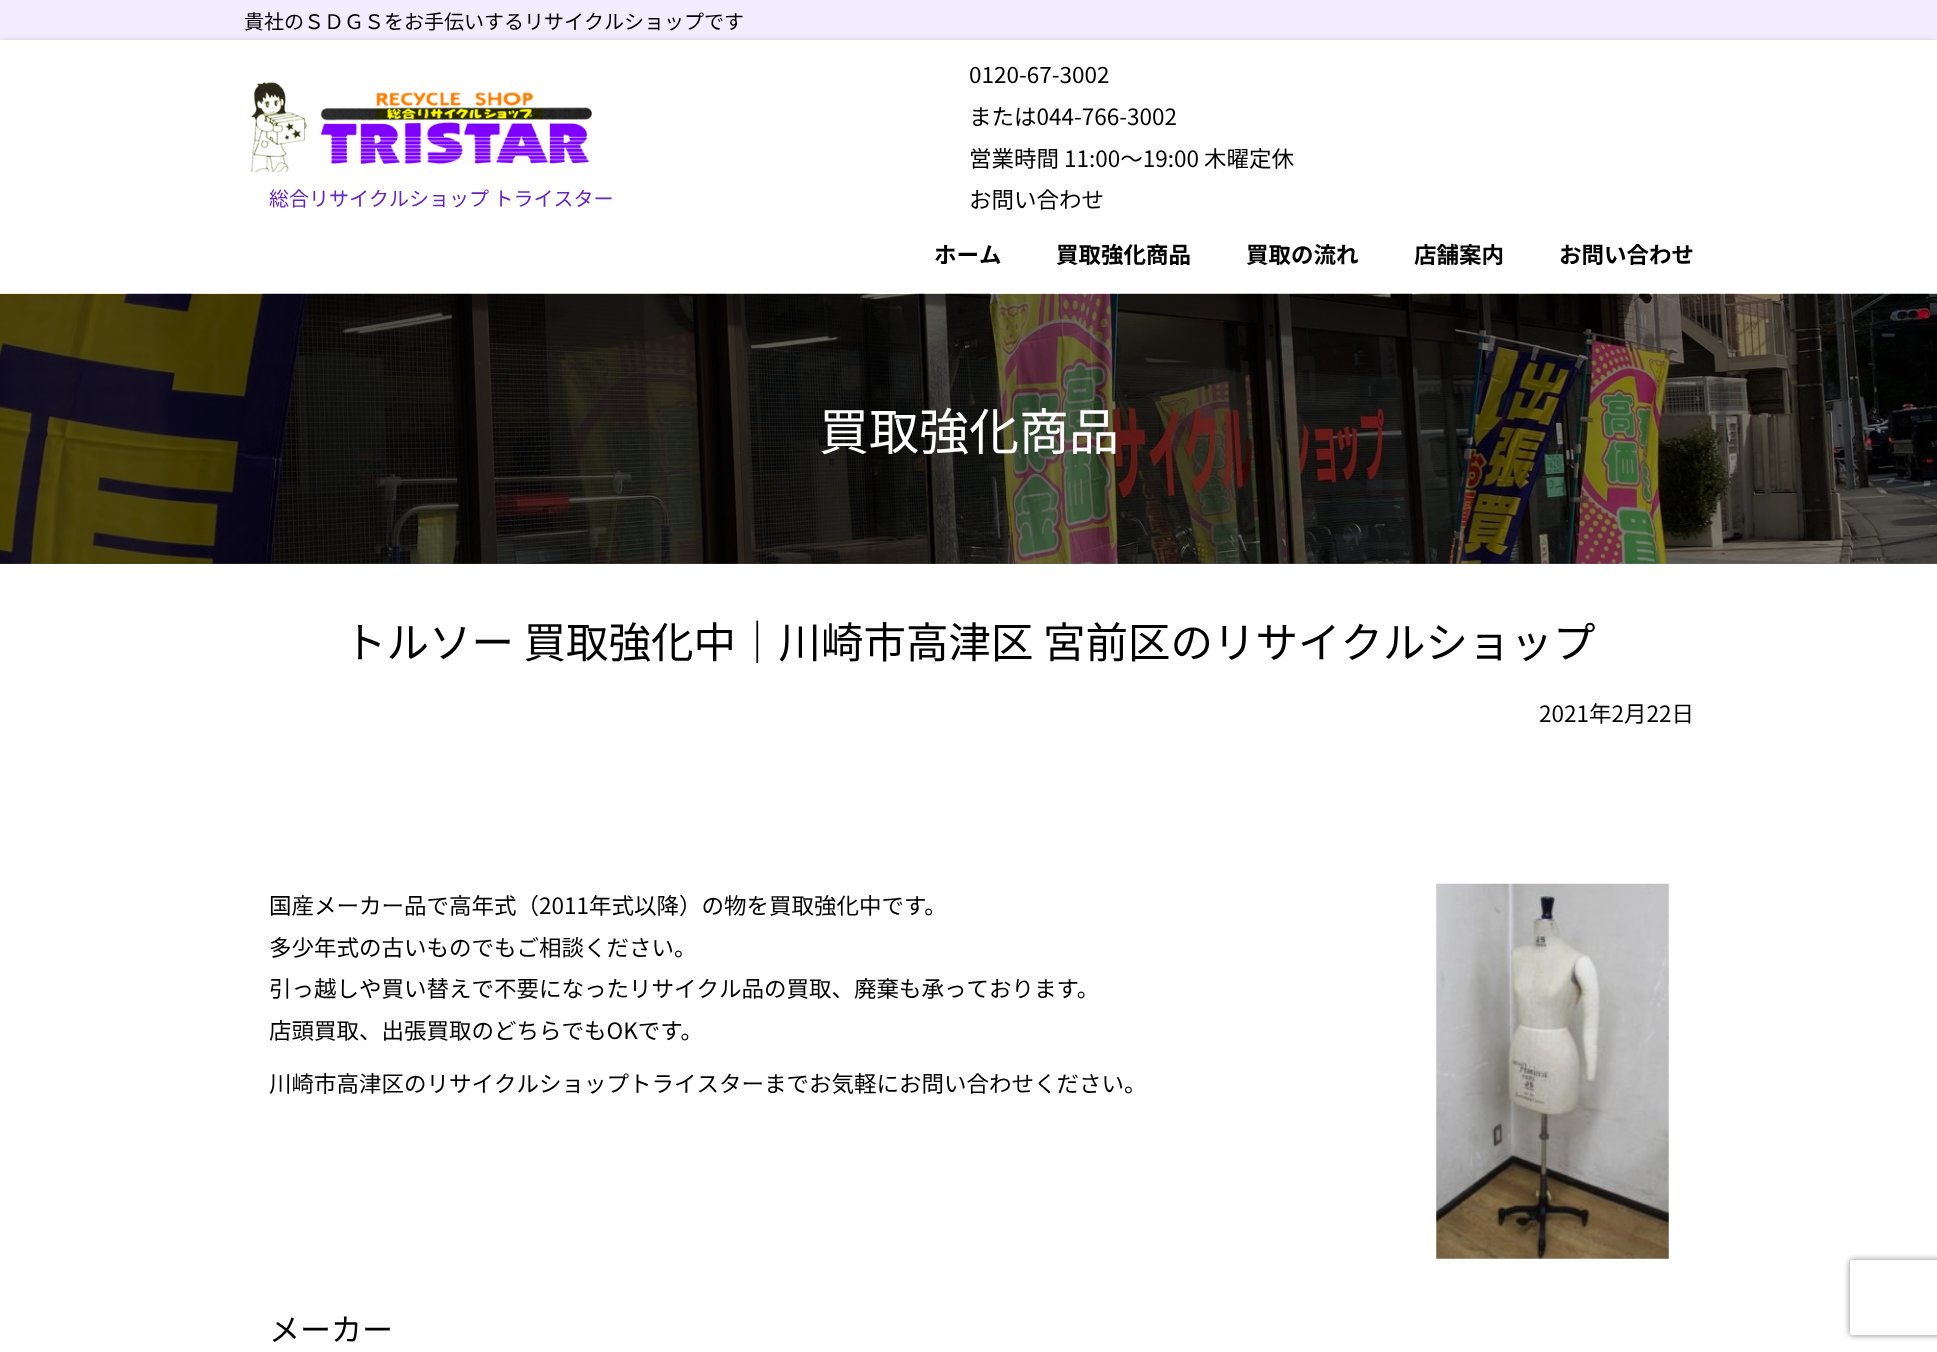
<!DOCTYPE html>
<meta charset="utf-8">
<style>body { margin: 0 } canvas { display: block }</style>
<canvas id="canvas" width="1937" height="1352"></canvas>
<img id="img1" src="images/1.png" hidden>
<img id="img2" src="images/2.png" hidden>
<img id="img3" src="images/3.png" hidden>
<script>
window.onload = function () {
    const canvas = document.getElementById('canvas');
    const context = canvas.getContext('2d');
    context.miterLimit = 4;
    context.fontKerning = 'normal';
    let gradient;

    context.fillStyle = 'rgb(255, 255, 255)';
    context.fillRect(0, 0, 1937, 1352);
    context.fillStyle = 'rgb(241, 237, 255)';
    context.fillRect(0, 0, 1937, 40);
    context.fillStyle = 'rgba(0, 0, 2, 0.36)';
    context.filter = 'blur(4px)';
    context.beginPath();
    context.rect(0, 44, 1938, 254);
    context.fill();
    context.filter = 'none';
    context.fillStyle = 'rgb(255, 255, 255)';
    context.fillRect(0, 40, 1937, 254);
    context.drawImage(document.getElementById('img1'), 250, 82, 343, 91);
    context.drawImage(document.getElementById('img2'), 0, 293, 1937, 271);
    gradient = context.createLinearGradient(0, 429, 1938, 429);
    gradient.addColorStop(0.2, 'rgba(2, 0, 0, 0.68)');
    gradient.addColorStop(1, 'rgba(2, 0, 0, 0.44)');
    context.fillStyle = gradient;
    context.fillRect(0, 294, 1937, 270);
    context.drawImage(document.getElementById('img3'), 1436, 883, 233, 376);
    context.save();
    context.beginPath();
    context.moveTo(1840, 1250);
    context.lineTo(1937, 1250);
    context.lineTo(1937, 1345);
    context.lineTo(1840, 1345);
    context.closePath();
    context.moveTo(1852.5, 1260);
    context.lineTo(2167.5, 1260);
    context.bezierCurveTo(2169, 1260, 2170, 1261, 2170, 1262.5);
    context.lineTo(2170, 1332.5);
    context.bezierCurveTo(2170, 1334, 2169, 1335, 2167.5, 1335);
    context.lineTo(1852.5, 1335);
    context.bezierCurveTo(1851, 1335, 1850, 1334, 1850, 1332.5);
    context.lineTo(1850, 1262.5);
    context.bezierCurveTo(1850, 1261, 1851, 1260, 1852.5, 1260);
    context.closePath();
    context.clip('evenodd');
    context.fillStyle = 'rgb(128, 128, 128)';
    context.filter = 'blur(3px)';
    context.beginPath();
    context.roundRect(1850, 1260, 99, 75, 2.5);
    context.fill();
    context.filter = 'none';
    context.restore();
    context.font = '20px Noto Sans JP';
    context.fillStyle = 'rgb(0, 0, 0)';
    context.fillText('貴社のＳＤＧＳをお手伝いするリサイクルショップです', 244, 29);
    context.fillStyle = 'rgb(104, 38, 191)';
    context.fillText('総合リサイクルショップ トライスター', 269, 206);
    context.font = '22.5px Noto Sans JP';
    context.fillStyle = 'rgb(0, 0, 0)';
    context.fillText('0120-67-3002', 969, 83);
    context.fillText('または044-766-3002', 969, 125);
    context.fillText('営業時間 11:00～19:00 木曜定休', 969, 167);
    context.fillText('お問い合わせ', 969, 208);
    context.font = 'bold 22.5px Noto Sans JP';
    context.fillText('ホーム', 934, 263);
    context.fillText('買取強化商品', 1056, 263);
    context.fillText('買取の流れ', 1246, 263);
    context.fillText('店舗案内', 1414, 263);
    context.fillText('お問い合わせ', 1559, 263);
    context.font = '50px Noto Sans JP';
    context.fillStyle = 'rgb(255, 255, 255)';
    context.fillText('買取強化商品', 819, 450);
    context.font = '42.5px Noto Sans JP';
    context.fillStyle = 'rgb(0, 0, 0)';
    context.fillText('トルソー 買取強化中｜川崎市高津区 宮前区のリサイクルショップ', 344, 658);
    context.font = '22.5px Noto Sans JP';
    context.fillText('2021年2月22日', 1539, 722);
    context.fillText('国産メーカー品で高年式（2011年式以降）の物を買取強化中です。', 269, 914);
    context.fillText('多少年式の古いものでもご相談ください。', 269, 956);
    context.fillText('引っ越しや買い替えで不要になったリサイクル品の買取、廃棄も承っております。', 269, 997);
    context.fillText('店頭買取、出張買取のどちらでもOKです。', 269, 1039);
    context.fillText('川崎市高津区のリサイクルショップトライスターまでお気軽にお問い合わせください。', 269, 1092);
    context.font = '31px Noto Sans JP';
    context.fillText('メーカー', 269, 1341);
};
</script>
